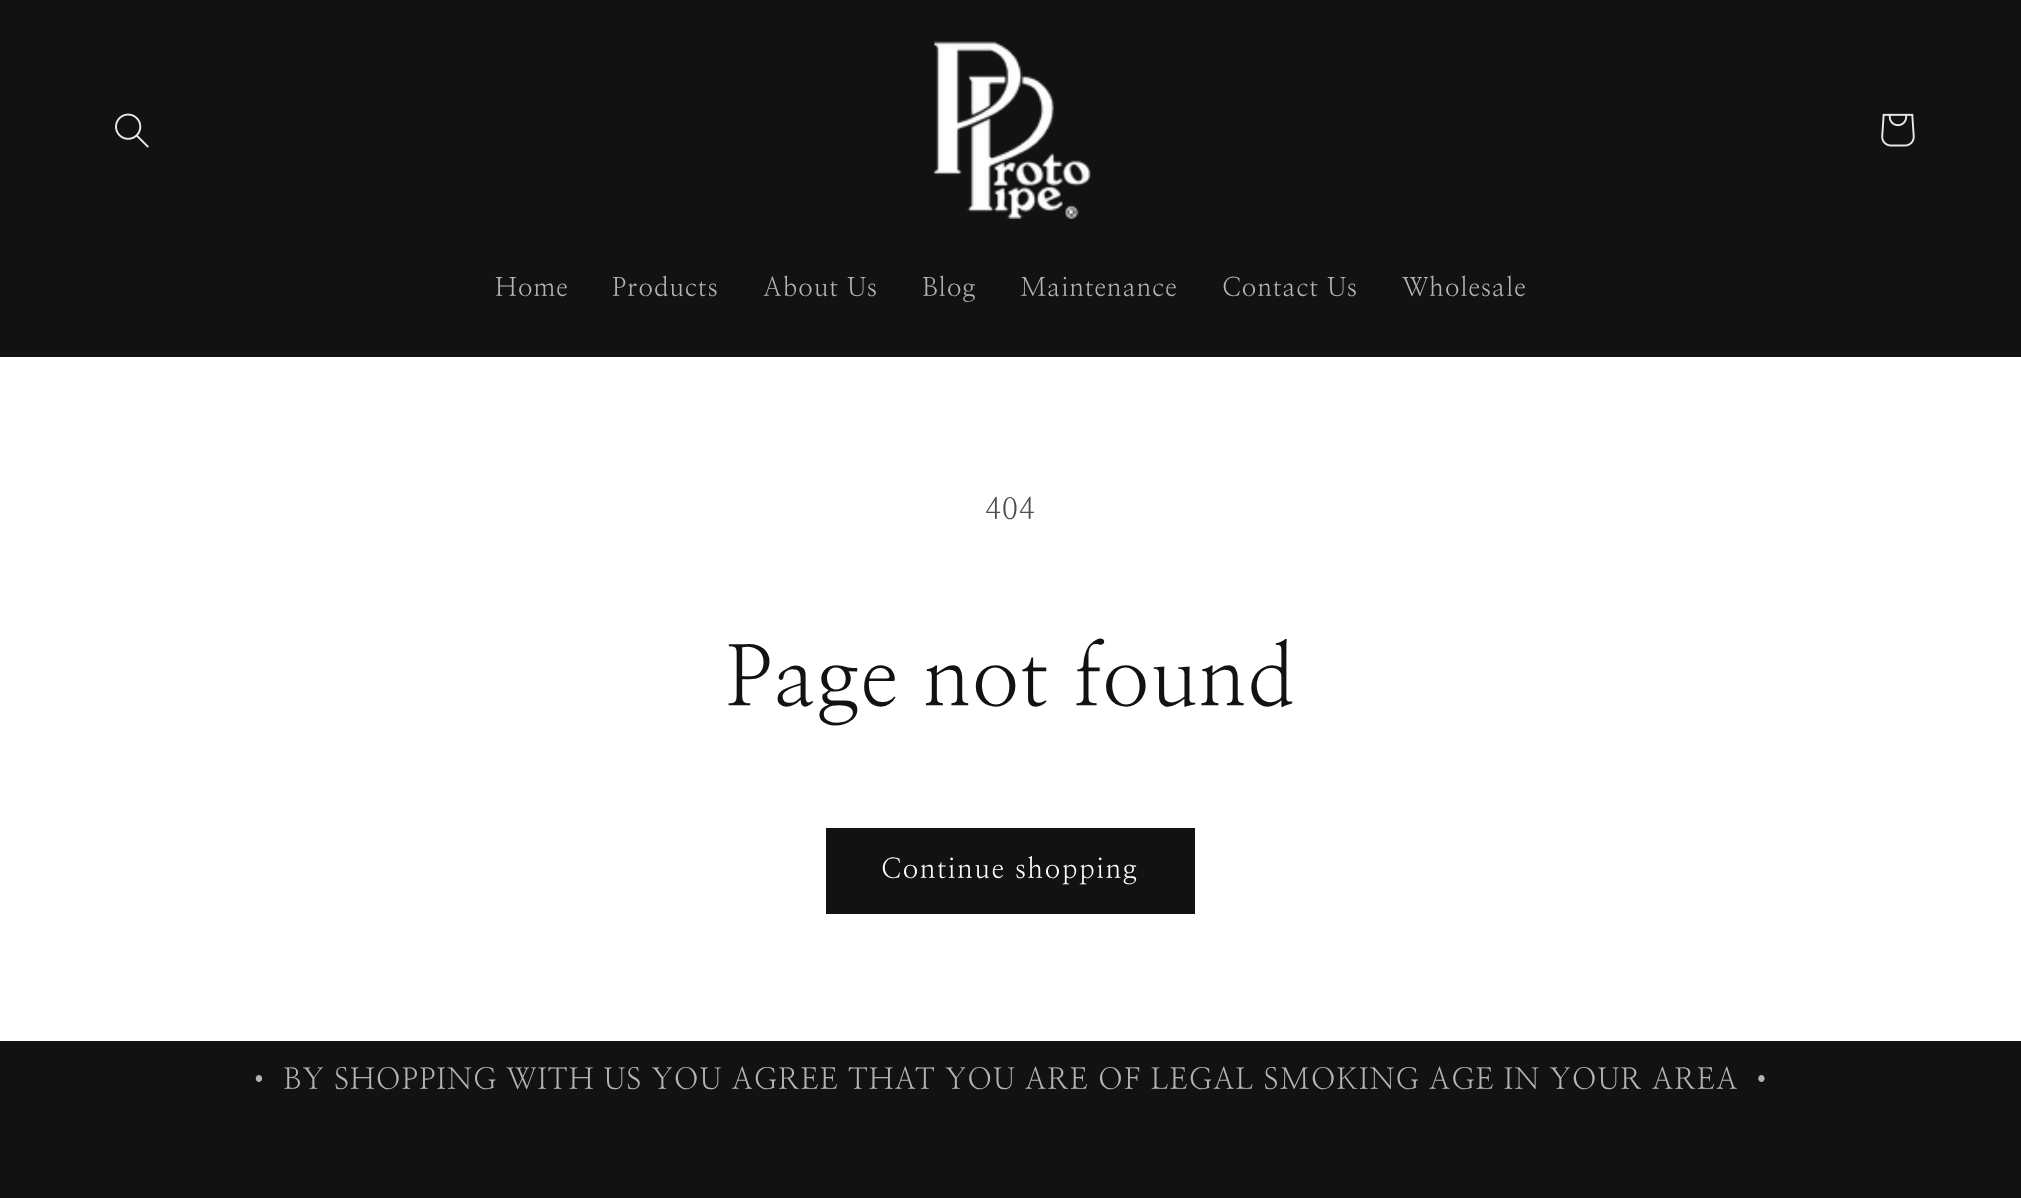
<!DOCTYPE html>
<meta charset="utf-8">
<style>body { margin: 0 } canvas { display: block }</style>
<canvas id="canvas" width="2021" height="1198"></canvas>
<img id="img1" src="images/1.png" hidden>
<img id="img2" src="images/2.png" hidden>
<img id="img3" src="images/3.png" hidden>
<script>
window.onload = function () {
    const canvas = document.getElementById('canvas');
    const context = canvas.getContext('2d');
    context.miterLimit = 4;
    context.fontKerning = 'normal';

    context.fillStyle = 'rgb(255, 255, 255)';
    context.fillRect(0, 0, 2021, 1198);
    context.fillStyle = 'rgb(18, 18, 18)';
    context.fillRect(0, 0, 2021, 357);
    context.drawImage(document.getElementById('img1'), 115, 113, 34, 35);
    context.drawImage(document.getElementById('img2'), 933, 41, 158, 178);
    context.drawImage(document.getElementById('img3'), 1881, 113, 34, 34);
    context.fillRect(826, 828, 369, 86);
    context.fillRect(0, 1041, 2021, 157);
    context.letterSpacing = '1.1px';
    context.font = '25.75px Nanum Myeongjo';
    context.fillStyle = 'rgb(182, 179, 179)';
    context.fillText('Home', 495, 296);
    context.fillText('Products', 612, 296);
    context.fillText('About Us', 763, 296);
    context.fillText('Blog', 922, 296);
    context.fillText('Maintenance', 1020, 296);
    context.fillText('Contact Us', 1222, 296);
    context.fillText('Wholesale', 1402, 296);
    context.font = '29.4px Nanum Myeongjo';
    context.fillStyle = 'rgb(77, 77, 77)';
    context.fillText('404', 985, 519);
    context.letterSpacing = '1.25px';
    context.font = '84px Nanum Myeongjo';
    context.fillStyle = 'rgb(18, 18, 18)';
    context.fillText('Page not found', 726, 706);
    context.letterSpacing = '1.8px';
    context.font = '27.5px Nanum Myeongjo';
    context.fillStyle = 'rgb(255, 255, 255)';
    context.fillText('Continue shopping', 881, 878);
    context.letterSpacing = '1.1px';
    context.font = '29.4px Nanum Myeongjo';
    context.fillStyle = 'rgb(182, 179, 179)';
    context.fillText('• BY SHOPPING WITH US YOU AGREE THAT YOU ARE OF LEGAL SMOKING AGE IN YOUR AREA •', 245, 1089);
};
</script>
